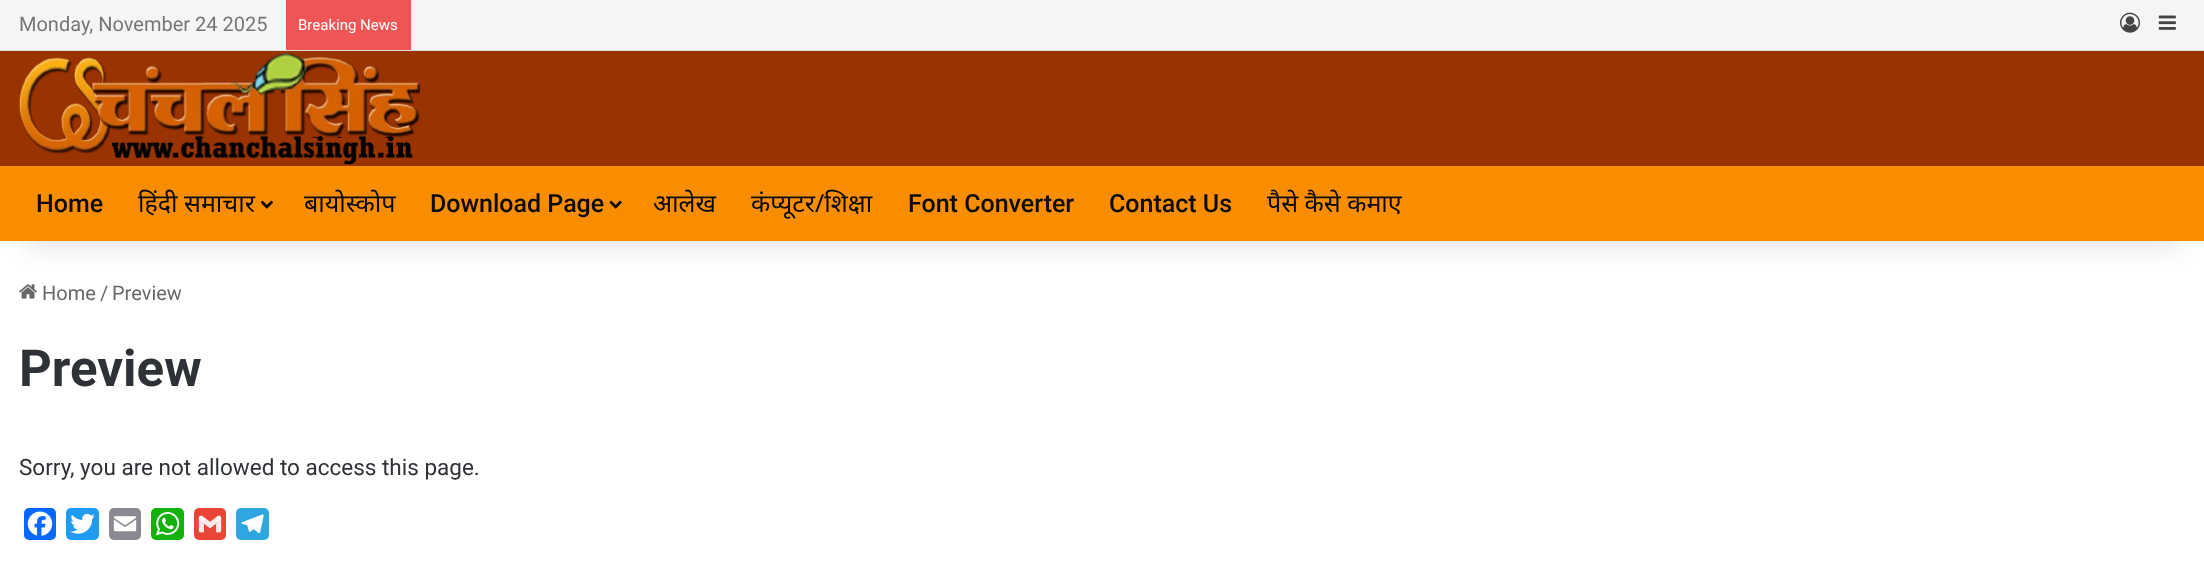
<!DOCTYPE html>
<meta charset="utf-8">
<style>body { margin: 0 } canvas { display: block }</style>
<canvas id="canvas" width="2204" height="564"></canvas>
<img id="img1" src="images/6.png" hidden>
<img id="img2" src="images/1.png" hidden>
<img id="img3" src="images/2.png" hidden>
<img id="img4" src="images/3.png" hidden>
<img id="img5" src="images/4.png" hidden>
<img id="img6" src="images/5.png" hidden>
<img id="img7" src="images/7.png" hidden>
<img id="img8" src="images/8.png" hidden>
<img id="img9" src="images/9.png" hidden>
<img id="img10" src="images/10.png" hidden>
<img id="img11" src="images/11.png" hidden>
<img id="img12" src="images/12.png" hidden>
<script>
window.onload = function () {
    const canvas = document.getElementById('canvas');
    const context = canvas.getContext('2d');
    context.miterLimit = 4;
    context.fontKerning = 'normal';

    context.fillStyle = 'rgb(255, 255, 255)';
    context.fillRect(0, 0, 2204, 564);
    context.drawImage(document.getElementById('img1'), 19, 284, 18, 15);
    context.fillStyle = 'rgba(0, 0, 0, 0.1)';
    context.filter = 'blur(12.5px)';
    context.beginPath();
    context.rect(25, 56, 2155, 192);
    context.fill();
    context.filter = 'none';
    context.fillStyle = 'rgb(153, 51, 0)';
    context.fillRect(0, 51, 2204, 115);
    context.fillStyle = 'rgb(245, 245, 245)';
    context.fillRect(0, 0, 2204, 50);
    context.fillStyle = 'rgb(221, 221, 221)';
    context.fillRect(0, 50, 2204, 1);
    context.fillStyle = 'rgb(240, 85, 85)';
    context.fillRect(286, 0, 125, 50);
    context.drawImage(document.getElementById('img2'), 2120, 12, 20, 21);
    context.drawImage(document.getElementById('img3'), 2158, 15, 18, 15);
    context.drawImage(document.getElementById('img4'), 19, 52, 401, 113);
    context.fillStyle = 'rgb(249, 141, 0)';
    context.fillRect(0, 166, 2204, 75);
    context.drawImage(document.getElementById('img5'), 260, 200, 13, 9);
    context.drawImage(document.getElementById('img6'), 609, 200, 13, 9);
    context.fillStyle = 'rgb(10, 104, 255)';
    context.beginPath();
    context.roundRect(24, 508, 32, 32, 5);
    context.fill();
    context.drawImage(document.getElementById('img7'), 27, 511, 26, 25);
    context.fillStyle = 'rgb(31, 156, 240)';
    context.beginPath();
    context.roundRect(66, 508, 33, 32, 5);
    context.fill();
    context.drawImage(document.getElementById('img8'), 70, 513, 25, 21);
    context.fillStyle = 'rgb(137, 138, 145)';
    context.beginPath();
    context.roundRect(109, 508, 32, 32, 5);
    context.fill();
    context.drawImage(document.getElementById('img9'), 113, 516, 24, 16);
    context.fillStyle = 'rgb(20, 176, 12)';
    context.beginPath();
    context.roundRect(151, 508, 33, 32, 5);
    context.fill();
    context.drawImage(document.getElementById('img10'), 155, 512, 25, 24);
    context.fillStyle = 'rgb(234, 69, 55)';
    context.beginPath();
    context.roundRect(194, 508, 32, 32, 5);
    context.fill();
    context.drawImage(document.getElementById('img11'), 198, 515, 24, 18);
    context.fillStyle = 'rgb(46, 166, 224)';
    context.beginPath();
    context.roundRect(236, 508, 33, 32, 5);
    context.fill();
    context.drawImage(document.getElementById('img12'), 241, 514, 23, 20);
    context.font = '20px Roboto';
    context.fillStyle = 'rgb(119, 119, 119)';
    context.fillText('Monday, November 24 2025', 19, 31);
    context.font = '15px Roboto';
    context.fillStyle = 'rgb(255, 255, 255)';
    context.fillText('Breaking News', 298, 30);
    context.font = '500 25px Roboto';
    context.fillStyle = 'rgb(10, 10, 10)';
    context.fillText('Home', 36, 212);
    context.font = '25px Noto Sans';
    context.fillText('हिंदी समाचार', 138, 212);
    context.fillText('बायोस्कोप', 304, 212);
    context.font = '500 25px Roboto';
    context.fillText('Download Page', 430, 212);
    context.font = '25px Noto Sans';
    context.fillText('आलेख', 653, 212);
    context.fillText('कंप्यूटर/शिक्षा', 751, 212);
    context.font = '500 25px Roboto';
    context.fillText('Font Converter', 908, 212);
    context.fillText('Contact Us', 1109, 212);
    context.font = '25px Noto Sans';
    context.fillText('पैसे कैसे कमाए', 1267, 212);
    context.font = '20px Roboto';
    context.fillStyle = 'rgb(104, 104, 104)';
    context.fillText('Home', 42, 300);
    context.fillText('/', 100, 300);
    context.fillText('Preview', 112, 300);
    context.font = 'bold 51px Roboto';
    context.fillStyle = 'rgb(46, 49, 54)';
    context.fillText('Preview', 19, 386);
    context.font = '22.5px Roboto';
    context.fillText('Sorry, you are not allowed to access this page.', 19, 475);
};
</script>
